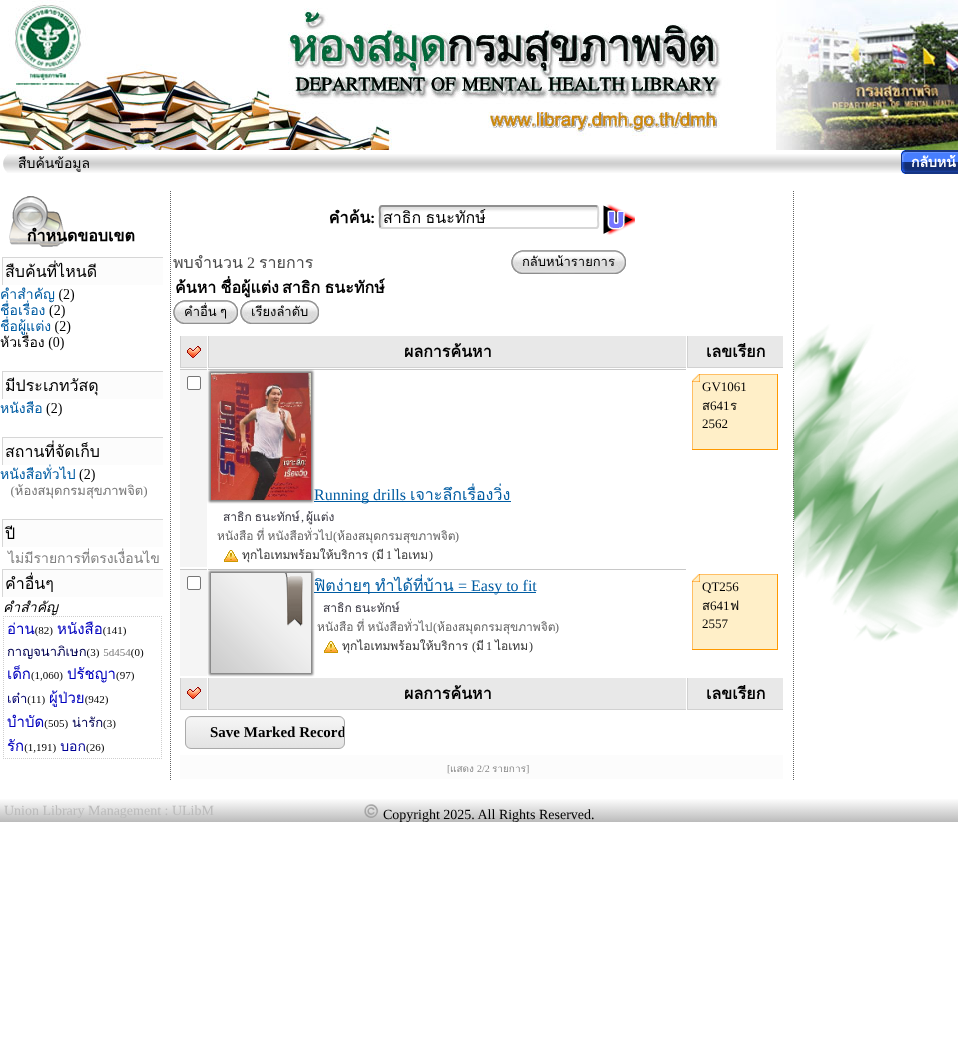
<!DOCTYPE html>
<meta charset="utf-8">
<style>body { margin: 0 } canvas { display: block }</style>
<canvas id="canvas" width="958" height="1047"></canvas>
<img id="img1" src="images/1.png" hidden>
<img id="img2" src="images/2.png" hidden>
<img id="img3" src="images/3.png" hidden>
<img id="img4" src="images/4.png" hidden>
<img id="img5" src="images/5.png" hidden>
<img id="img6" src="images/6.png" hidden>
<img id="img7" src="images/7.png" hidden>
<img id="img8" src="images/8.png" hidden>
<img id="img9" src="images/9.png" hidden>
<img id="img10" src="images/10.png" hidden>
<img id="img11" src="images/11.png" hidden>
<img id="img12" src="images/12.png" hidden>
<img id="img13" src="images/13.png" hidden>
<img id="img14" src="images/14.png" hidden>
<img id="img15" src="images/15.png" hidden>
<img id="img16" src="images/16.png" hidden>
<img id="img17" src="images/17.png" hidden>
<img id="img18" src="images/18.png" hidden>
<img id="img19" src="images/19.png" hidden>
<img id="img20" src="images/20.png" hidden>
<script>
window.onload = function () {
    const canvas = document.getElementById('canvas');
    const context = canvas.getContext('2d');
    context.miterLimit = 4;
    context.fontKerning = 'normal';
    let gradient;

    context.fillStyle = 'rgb(255, 255, 255)';
    context.fillRect(0, 0, 958, 1047);
    context.drawImage(document.getElementById('img1'), 0, 0, 958, 150);
    context.drawImage(document.getElementById('img2'), 7, 154, 459, 19);
    context.drawImage(document.getElementById('img3'), 0, 154, 7, 19);
    context.drawImage(document.getElementById('img4'), 466, 154, 436, 19);
    context.drawImage(document.getElementById('img5'), 901, 150, 6, 24);
    context.drawImage(document.getElementById('img6'), 907, 150, 51, 24);
    context.beginPath();
    context.moveTo(170.5, 191);
    context.lineTo(170.5, 780);
    context.strokeStyle = 'rgb(98, 98, 98)';
    context.setLineDash([1, 1]);
    context.stroke();
    context.drawImage(document.getElementById('img7'), 0, 196, 163, 563);
    context.drawImage(document.getElementById('img8'), 381, 207, 218, 22);
    context.beginPath();
    context.moveTo(597.5, 206.5);
    context.bezierCurveTo(599, 208, 598, 217.5, 598, 220);
    context.bezierCurveTo(598, 221.5, 599.5, 228, 596, 228);
    context.lineTo(382, 228);
    context.lineTo(380.5, 227.5);
    context.strokeStyle = 'rgb(215, 215, 215)';
    context.lineWidth = 2;
    context.setLineDash([]);
    context.stroke();
    context.beginPath();
    context.moveTo(380.5, 227.5);
    context.bezierCurveTo(379, 226, 380, 216.5, 380, 214);
    context.bezierCurveTo(380, 212.5, 378.5, 206, 382, 206);
    context.lineTo(596, 206);
    context.lineTo(597.5, 206.5);
    context.strokeStyle = 'rgb(143, 143, 143)';
    context.stroke();
    context.drawImage(document.getElementById('img9'), 603, 204, 32, 31);
    context.drawImage(document.getElementById('img10'), 511, 250, 11, 24);
    context.drawImage(document.getElementById('img11'), 522, 250, 104, 24);
    context.drawImage(document.getElementById('img10'), 173, 300, 11, 24);
    context.drawImage(document.getElementById('img12'), 184, 300, 54, 24);
    context.drawImage(document.getElementById('img10'), 240, 300, 11, 24);
    context.drawImage(document.getElementById('img13'), 251, 300, 68, 24);
    context.fillStyle = 'rgb(232, 232, 232)';
    context.fillRect(181, 336, 26, 31);
    context.fillStyle = 'rgb(209, 209, 209)';
    context.fillRect(180, 367, 27, 1);
    context.fillRect(180, 336, 1, 32);
    context.drawImage(document.getElementById('img14'), 187, 346, 14, 12);
    context.fillStyle = 'rgb(232, 232, 232)';
    context.fillRect(209, 336, 477, 31);
    context.fillStyle = 'rgb(209, 209, 209)';
    context.fillRect(208, 367, 478, 1);
    context.fillRect(208, 336, 1, 32);
    context.fillStyle = 'rgb(232, 232, 232)';
    context.fillRect(688, 336, 95, 31);
    context.fillStyle = 'rgb(209, 209, 209)';
    context.fillRect(687, 367, 96, 1);
    context.fillRect(687, 336, 1, 32);
    context.fillStyle = 'rgb(245, 245, 245)';
    context.fillRect(180, 370, 27, 197);
    context.fillStyle = 'rgb(200, 200, 200)';
    context.fillRect(180, 369, 27, 1);
    context.fillStyle = 'rgb(255, 255, 255)';
    context.beginPath();
    context.roundRect(187.5, 376.5, 13, 13, 1.5);
    context.fill();
    context.strokeStyle = 'rgb(118, 118, 118)';
    context.lineWidth = 1;
    context.stroke();
    context.drawImage(document.getElementById('img15'), 692, 374, 85, 75);
    context.fillStyle = 'rgb(255, 153, 0)';
    context.fillRect(777, 374, 1, 76);
    context.fillRect(692, 449, 86, 1);
    context.fillStyle = 'rgb(200, 200, 200)';
    context.fillRect(208, 369, 478, 1);
    context.fillStyle = 'rgba(0, 0, 0, 0.5)';
    context.filter = 'blur(1px)';
    context.beginPath();
    context.rect(209, 371, 104, 131);
    context.fill();
    context.filter = 'none';
    context.drawImage(document.getElementById('img16'), 211, 373, 100, 127);
    context.fillStyle = 'rgb(0, 92, 162)';
    context.fillRect(314, 501, 197, 1);
    context.drawImage(document.getElementById('img17'), 224, 550, 14, 12);
    context.fillStyle = 'rgb(245, 245, 245)';
    context.fillRect(180, 570, 27, 106);
    context.fillStyle = 'rgb(200, 200, 200)';
    context.fillRect(180, 569, 27, 1);
    context.fillStyle = 'rgb(255, 255, 255)';
    context.beginPath();
    context.roundRect(187.5, 576.5, 13, 13, 1.5);
    context.fill();
    context.stroke();
    context.fillStyle = 'rgb(200, 200, 200)';
    context.fillRect(208, 569, 478, 1);
    context.fillStyle = 'rgb(232, 232, 232)';
    context.fillRect(181, 678, 26, 31);
    context.fillRect(209, 678, 477, 31);
    context.fillStyle = 'rgb(209, 209, 209)';
    context.fillRect(208, 709, 478, 1);
    context.fillRect(208, 678, 1, 32);
    context.fillStyle = 'rgba(0, 0, 0, 0.5)';
    context.filter = 'blur(1px)';
    context.beginPath();
    context.rect(209, 571, 104, 104);
    context.fill();
    context.filter = 'none';
    context.drawImage(document.getElementById('img18'), 211, 573, 100, 100);
    context.fillStyle = 'rgb(0, 92, 162)';
    context.fillRect(314, 592, 222, 1);
    context.drawImage(document.getElementById('img17'), 324, 641, 14, 12);
    context.drawImage(document.getElementById('img15'), 692, 574, 85, 75);
    context.fillStyle = 'rgb(255, 153, 0)';
    context.fillRect(777, 574, 1, 76);
    context.fillRect(692, 649, 86, 1);
    context.fillStyle = 'rgb(209, 209, 209)';
    context.fillRect(180, 709, 27, 1);
    context.fillRect(180, 678, 1, 32);
    context.drawImage(document.getElementById('img14'), 187, 687, 14, 12);
    context.fillStyle = 'rgb(232, 232, 232)';
    context.fillRect(688, 678, 95, 31);
    context.fillStyle = 'rgb(209, 209, 209)';
    context.fillRect(687, 709, 96, 1);
    context.fillRect(687, 678, 1, 32);
    context.save();
    context.beginPath();
    context.roundRect(185, 716, 160, 33, 6);
    context.clip();
    gradient = context.createLinearGradient(265, 717, 265, 748);
    gradient.addColorStop(0.05, 'rgb(245, 245, 245)');
    gradient.addColorStop(1, 'rgb(227, 227, 227)');
    context.fillStyle = gradient;
    context.fillRect(185, 717, 160, 31);
    context.restore();
    context.fillStyle = 'rgb(240, 240, 240)';
    context.beginPath();
    context.moveTo(191, 718);
    context.lineTo(339, 718);
    context.bezierCurveTo(342, 718, 344, 720, 344, 723);
    context.lineTo(344, 722);
    context.bezierCurveTo(344, 719, 342, 717, 339, 717);
    context.lineTo(191, 717);
    context.bezierCurveTo(188, 717, 186, 719, 186, 722);
    context.lineTo(186, 723);
    context.bezierCurveTo(186, 720, 188, 718, 191, 718);
    context.closePath();
    context.fill();
    context.beginPath();
    context.roundRect(185.5, 716.5, 159, 32, 5.5);
    context.strokeStyle = 'rgb(170, 170, 170)';
    context.stroke();
    context.fillStyle = 'rgb(252, 252, 252)';
    context.fillRect(180, 755, 603, 24);
    context.fillStyle = 'rgb(0, 102, 0)';
    context.fillRect(793, 324, 165, 318);
    context.drawImage(document.getElementById('img19'), 793, 191, 165, 589);
    context.beginPath();
    context.moveTo(793.5, 191);
    context.lineTo(793.5, 780);
    context.strokeStyle = 'rgb(98, 98, 98)';
    context.setLineDash([1, 1]);
    context.stroke();
    gradient = context.createLinearGradient(479, 798, 479, 822);
    gradient.addColorStop(0, 'rgb(255, 255, 255)');
    gradient.addColorStop(1, 'rgb(187, 187, 187)');
    context.fillStyle = gradient;
    context.fillRect(0, 799, 958, 23);
    context.drawImage(document.getElementById('img20'), 364, 804, 15, 14);
    context.font = '14px Loma';
    context.fillStyle = 'rgb(0, 0, 0)';
    context.fillText('สืบค้นข้อมูล', 18, 168);
    context.font = 'bold 14px Loma';
    context.fillStyle = 'rgb(255, 255, 255)';
    context.fillText('กลับหน้', 911, 167);
    context.font = 'bold 16px Loma';
    context.fillStyle = 'rgb(0, 0, 0)';
    context.fillText('คำค้น', 329, 223);
    context.font = 'bold 16px Liberation Serif';
    context.fillText(':', 370, 223);
    context.wordSpacing = '-1px';
    context.font = '16px Loma';
    context.fillText('สาธิก ธนะทักษ์', 383, 223);
    context.wordSpacing = '0px';
    context.fillStyle = 'rgb(75, 75, 75)';
    context.fillText('พบจำนวน', 173, 268);
    context.font = '16px Liberation Serif';
    context.fillText('2', 247, 268);
    context.font = '16px Loma';
    context.fillText('รายการ', 259, 268);
    context.wordSpacing = '-1px';
    context.font = 'bold 16px Loma';
    context.fillStyle = 'rgb(0, 0, 0)';
    context.fillText('ค้นหา ชื่อผู้แต่ง', 175, 293);
    context.fillText('สาธิก ธนะทักษ์', 282, 293);
    context.wordSpacing = '0px';
    context.font = '13px Loma';
    context.fillText('กลับหน้ารายการ', 522, 266);
    context.wordSpacing = '-1px';
    context.fillText('คำอื่น ๆ', 184, 316);
    context.wordSpacing = '0px';
    context.fillText('เรียงลำดับ', 251, 316);
    context.font = 'bold 16px Loma';
    context.fillText('ผลการค้นหา', 404, 357);
    context.fillText('เลขเรียก', 706, 357);
    context.font = '13px Liberation Serif';
    context.fillText('GV1061', 702, 391);
    context.font = '13px Loma';
    context.fillText('ส', 702, 410);
    context.font = '13px Liberation Serif';
    context.fillText('641', 710, 410);
    context.font = '13px Loma';
    context.fillText('ร', 730, 410);
    context.font = '13px Liberation Serif';
    context.fillText('2562', 702, 428);
    context.font = '16px Liberation Serif';
    context.fillStyle = 'rgb(0, 92, 162)';
    context.fillText('Running drills', 314, 500);
    context.font = '16px Loma';
    context.fillText('เจาะลึกเรื่องวิ่ง', 410, 500);
    context.wordSpacing = '-1px';
    context.font = '12px Loma';
    context.fillStyle = 'rgb(52, 51, 62)';
    context.fillText('สาธิก ธนะทักษ์', 223, 521);
    context.wordSpacing = '0px';
    context.font = '12px Liberation Serif';
    context.fillText(',', 301, 521);
    context.font = '12px Loma';
    context.fillText('ผู้แต่ง', 306, 521);
    context.wordSpacing = '-1px';
    context.fillStyle = 'rgb(100, 100, 100)';
    context.fillText('หนังสือ ที่ หนังสือทั่วไป', 217, 540);
    context.wordSpacing = '0px';
    context.font = '12px Liberation Serif';
    context.fillText('(', 333, 540);
    context.font = '12px Loma';
    context.fillText('ห้องสมุดกรมสุขภาพจิต', 337, 540);
    context.font = '12px Liberation Serif';
    context.fillText(')', 455, 540);
    context.font = '12px Loma';
    context.fillStyle = 'rgb(51, 51, 51)';
    context.fillText('ทุกไอเทมพร้อมให้บริการ', 242, 559);
    context.fillText('ไอเทม', 395, 559);
    context.font = '12px Liberation Serif';
    context.fillText('(', 372, 559);
    context.font = '12px Loma';
    context.fillText('มี', 376, 559);
    context.font = '12px Liberation Serif';
    context.fillText('1', 386, 559);
    context.fillText(')', 429, 559);
    context.font = '16px Loma';
    context.fillStyle = 'rgb(0, 92, 162)';
    context.fillText('ฟิตง่ายๆ', 314, 591);
    context.fillText('ทำได้ที่บ้าน', 375, 591);
    context.font = '16px Liberation Serif';
    context.fillText('= Easy to fit', 458, 591);
    context.wordSpacing = '-1px';
    context.font = '12px Loma';
    context.fillStyle = 'rgb(52, 51, 62)';
    context.fillText('สาธิก ธนะทักษ์', 323, 612);
    context.fillStyle = 'rgb(100, 100, 100)';
    context.fillText('หนังสือ ที่ หนังสือทั่วไป', 317, 631);
    context.wordSpacing = '0px';
    context.font = '12px Liberation Serif';
    context.fillText('(', 433, 631);
    context.font = '12px Loma';
    context.fillText('ห้องสมุดกรมสุขภาพจิต', 437, 631);
    context.font = '12px Liberation Serif';
    context.fillText(')', 555, 631);
    context.font = '12px Loma';
    context.fillStyle = 'rgb(51, 51, 51)';
    context.fillText('ทุกไอเทมพร้อมให้บริการ', 342, 650);
    context.fillText('ไอเทม', 495, 650);
    context.font = '12px Liberation Serif';
    context.fillText('(', 472, 650);
    context.font = '12px Loma';
    context.fillText('มี', 476, 650);
    context.font = '12px Liberation Serif';
    context.fillText('1', 486, 650);
    context.fillText(')', 529, 650);
    context.font = '13px Liberation Serif';
    context.fillStyle = 'rgb(0, 0, 0)';
    context.fillText('QT256', 702, 591);
    context.font = '13px Loma';
    context.fillText('ส', 702, 610);
    context.font = '13px Liberation Serif';
    context.fillText('641', 710, 610);
    context.font = '13px Loma';
    context.fillText('ฟ', 730, 610);
    context.font = '13px Liberation Serif';
    context.fillText('2557', 702, 628);
    context.font = 'bold 16px Loma';
    context.fillText('ผลการค้นหา', 404, 699);
    context.fillText('เลขเรียก', 706, 699);
    context.save();
    context.beginPath();
    context.roundRect(186, 717, 158, 31, 5);
    context.clip();
    context.font = 'bold 15px Liberation Serif';
    context.fillText('Save Marked Record', 210, 737);
    context.restore();
    context.font = '10px Liberation Serif';
    context.fillStyle = 'rgb(136, 136, 136)';
    context.fillText('[', 447, 772);
    context.font = '10px Loma';
    context.fillText('แสดง', 450, 772);
    context.font = '10px Liberation Serif';
    context.fillText('2/2', 477, 772);
    context.font = '10px Loma';
    context.fillText('รายการ', 492, 772);
    context.font = '10px Liberation Serif';
    context.fillText(']', 526, 772);
    context.font = '14px Liberation Serif';
    context.fillStyle = 'rgb(187, 187, 187)';
    context.fillText('Union Library Management : ULibM', 4, 815);
    context.fillStyle = 'rgb(0, 0, 0)';
    context.fillText('Copyright 2025. All Rights Reserved.', 383, 819);
};
</script>
